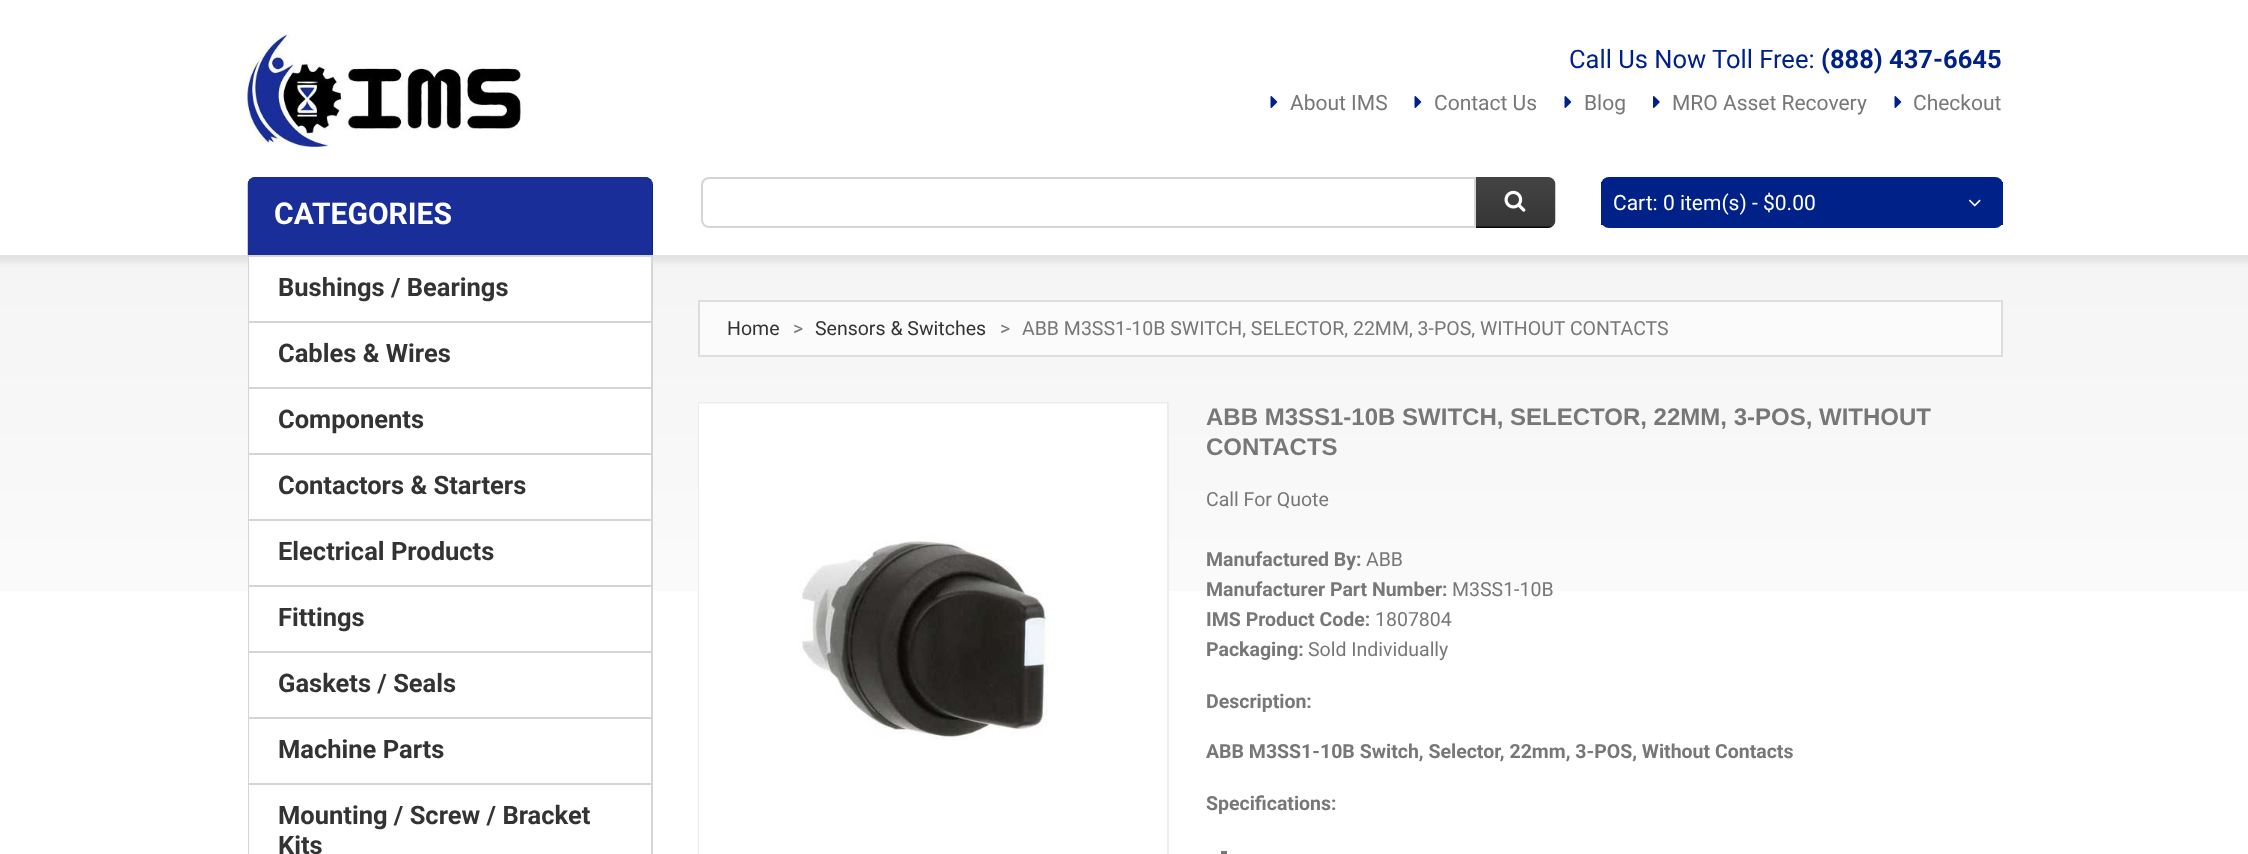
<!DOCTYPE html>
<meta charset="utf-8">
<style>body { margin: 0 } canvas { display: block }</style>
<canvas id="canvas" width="2248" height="854"></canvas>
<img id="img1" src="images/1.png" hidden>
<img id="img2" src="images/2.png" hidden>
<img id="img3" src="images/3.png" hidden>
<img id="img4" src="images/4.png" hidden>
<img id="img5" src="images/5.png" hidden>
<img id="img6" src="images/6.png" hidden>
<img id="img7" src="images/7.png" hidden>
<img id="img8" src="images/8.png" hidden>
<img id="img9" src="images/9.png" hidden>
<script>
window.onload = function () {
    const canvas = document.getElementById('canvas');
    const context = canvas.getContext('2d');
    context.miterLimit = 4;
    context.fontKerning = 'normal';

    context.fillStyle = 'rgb(255, 255, 255)';
    context.fillRect(0, 0, 2248, 854);
    context.drawImage(document.getElementById('img1'), 247, 34, 274, 113);
    context.drawImage(document.getElementById('img2'), 1270, 96, 8, 12);
    context.drawImage(document.getElementById('img2'), 1414, 96, 8, 12);
    context.drawImage(document.getElementById('img2'), 1564, 96, 8, 12);
    context.drawImage(document.getElementById('img3'), 1653, 96, 7, 12);
    context.drawImage(document.getElementById('img2'), 1894, 96, 8, 12);
    context.beginPath();
    context.roundRect(702, 178, 773, 49, [7, 0, 0, 7]);
    context.strokeStyle = 'rgb(214, 213, 213)';
    context.lineWidth = 2;
    context.stroke();
    context.drawImage(document.getElementById('img4'), 1476, 177, 80, 51);
    context.drawImage(document.getElementById('img5'), 1504, 190, 22, 22);
    context.fillStyle = 'rgb(0, 34, 136)';
    context.beginPath();
    context.roundRect(1601, 177, 402, 51, 8);
    context.fill();
    context.fillRect(2001, 182, 2, 43);
    context.fillRect(1601, 182, 2, 43);
    context.drawImage(document.getElementById('img6'), 1968, 199, 13, 8);
    context.drawImage(document.getElementById('img7'), 0, 255, 2248, 336);
    context.beginPath();
    context.roundRect(248, 177, 405, 78, [8, 8, 0, 0]);
    context.fill();
    context.drawImage(document.getElementById('img8'), 247, 177, 406, 78);
    context.strokeRect(249, 256, 403, 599);
    context.fillStyle = 'rgb(255, 255, 255)';
    context.fillRect(249, 257, 402, 64);
    context.fillStyle = 'rgb(214, 213, 213)';
    context.fillRect(249, 321, 402, 2);
    context.fillStyle = 'rgb(255, 255, 255)';
    context.fillRect(249, 323, 402, 64);
    context.fillStyle = 'rgb(214, 213, 213)';
    context.fillRect(249, 387, 402, 2);
    context.fillStyle = 'rgb(255, 255, 255)';
    context.fillRect(249, 389, 402, 64);
    context.fillStyle = 'rgb(214, 213, 213)';
    context.fillRect(249, 453, 402, 2);
    context.fillStyle = 'rgb(255, 255, 255)';
    context.fillRect(249, 455, 402, 64);
    context.fillStyle = 'rgb(214, 213, 213)';
    context.fillRect(249, 519, 402, 2);
    context.fillStyle = 'rgb(255, 255, 255)';
    context.fillRect(249, 521, 402, 64);
    context.fillStyle = 'rgb(214, 213, 213)';
    context.fillRect(249, 585, 402, 2);
    context.fillStyle = 'rgb(255, 255, 255)';
    context.fillRect(249, 587, 402, 64);
    context.fillStyle = 'rgb(214, 213, 213)';
    context.fillRect(249, 651, 402, 2);
    context.fillStyle = 'rgb(255, 255, 255)';
    context.fillRect(249, 653, 1, 64);
    context.fillStyle = 'rgb(214, 213, 213)';
    context.fillRect(249, 717, 402, 2);
    context.fillStyle = 'rgb(255, 255, 255)';
    context.fillRect(249, 719, 1, 64);
    context.fillStyle = 'rgb(214, 213, 213)';
    context.fillRect(249, 783, 402, 2);
    context.fillStyle = 'rgb(255, 255, 255)';
    context.fillRect(249, 785, 1, 69);
    context.fillStyle = 'rgb(251, 251, 251)';
    context.beginPath();
    context.rect(699, 301, 1303, 55);
    context.fill();
    context.strokeStyle = 'rgb(221, 221, 221)';
    context.stroke();
    context.strokeStyle = 'rgb(236, 236, 236)';
    context.strokeRect(699, 403, 469, 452);
    context.fillStyle = 'rgb(255, 255, 255)';
    context.fillRect(699, 740, 1, 114);
    context.drawImage(document.getElementById('img9'), 699, 403, 468, 337);
    context.fillStyle = 'rgb(119, 119, 119)';
    context.fillRect(1221, 851, 6, 3);
    context.font = '25.5px Roboto';
    context.fillStyle = 'rgb(0, 34, 136)';
    context.fillText('Call Us Now Toll Free:', 1569, 68);
    context.font = 'bold 25.5px Roboto';
    context.fillText('(888) 437-6645', 1821, 68);
    context.font = '21px Roboto';
    context.fillStyle = 'rgb(119, 119, 119)';
    context.fillText('About IMS', 1290, 110);
    context.fillText('Contact Us', 1434, 110);
    context.fillText('Blog', 1584, 110);
    context.fillText('MRO Asset Recovery', 1672, 110);
    context.fillText('Checkout', 1913, 110);
    context.fillStyle = 'rgb(255, 255, 255)';
    context.fillText('Cart: 0 item(s) - $0.00', 1613, 210);
    context.font = 'bold 30px Roboto';
    context.fillText('CATEGORIES', 274, 224);
    context.font = 'bold 25.5px Roboto';
    context.fillStyle = 'rgb(51, 51, 51)';
    context.fillText('Bushings / Bearings', 278, 296);
    context.fillText('Cables & Wires', 278, 362);
    context.fillText('Components', 278, 428);
    context.fillText('Contactors & Starters', 278, 494);
    context.fillText('Electrical Products', 278, 560);
    context.fillText('Fittings', 278, 626);
    context.fillText('Gaskets / Seals', 278, 692);
    context.fillText('Machine Parts', 278, 758);
    context.fillText('Mounting / Screw / Bracket', 278, 824);
    context.fillText('Kits', 278, 854);
    context.font = '19.5px Roboto';
    context.fillText('Home', 727, 335);
    context.fillStyle = 'rgb(119, 119, 119)';
    context.fillText('>', 793, 335);
    context.fillStyle = 'rgb(51, 51, 51)';
    context.fillText('Sensors & Switches', 815, 335);
    context.fillStyle = 'rgb(119, 119, 119)';
    context.fillText('>', 1000, 335);
    context.fillText('ABB M3SS1-10B SWITCH, SELECTOR, 22MM, 3-POS, WITHOUT CONTACTS', 1022, 335);
    context.font = 'bold 24px Liberation Sans';
    context.fillText('ABB M3SS1-10B SWITCH, SELECTOR, 22MM, 3-POS, WITHOUT', 1206, 425);
    context.fillText('CONTACTS', 1206, 455);
    context.font = '19.5px Roboto';
    context.fillText('Call For Quote', 1206, 506);
    context.font = 'bold 19.5px Roboto';
    context.fillText('Manufactured By:', 1206, 566);
    context.font = '19.5px Roboto';
    context.fillText('ABB', 1366, 566);
    context.font = 'bold 19.5px Roboto';
    context.fillText('Manufacturer Part Number:', 1206, 596);
    context.font = '19.5px Roboto';
    context.fillText('M3SS1-10B', 1452, 596);
    context.font = 'bold 19.5px Roboto';
    context.fillText('IMS Product Code:', 1206, 626);
    context.font = '19.5px Roboto';
    context.fillText('1807804', 1375, 626);
    context.font = 'bold 19.5px Roboto';
    context.fillText('Packaging:', 1206, 656);
    context.font = '19.5px Roboto';
    context.fillText('Sold Individually', 1308, 656);
    context.font = 'bold 19.5px Roboto';
    context.fillText('Description:', 1206, 708);
    context.fillText('ABB M3SS1-10B Switch, Selector, 22mm, 3-POS, Without Contacts', 1206, 758);
    context.fillText('Specifications:', 1206, 810);
};
</script>
